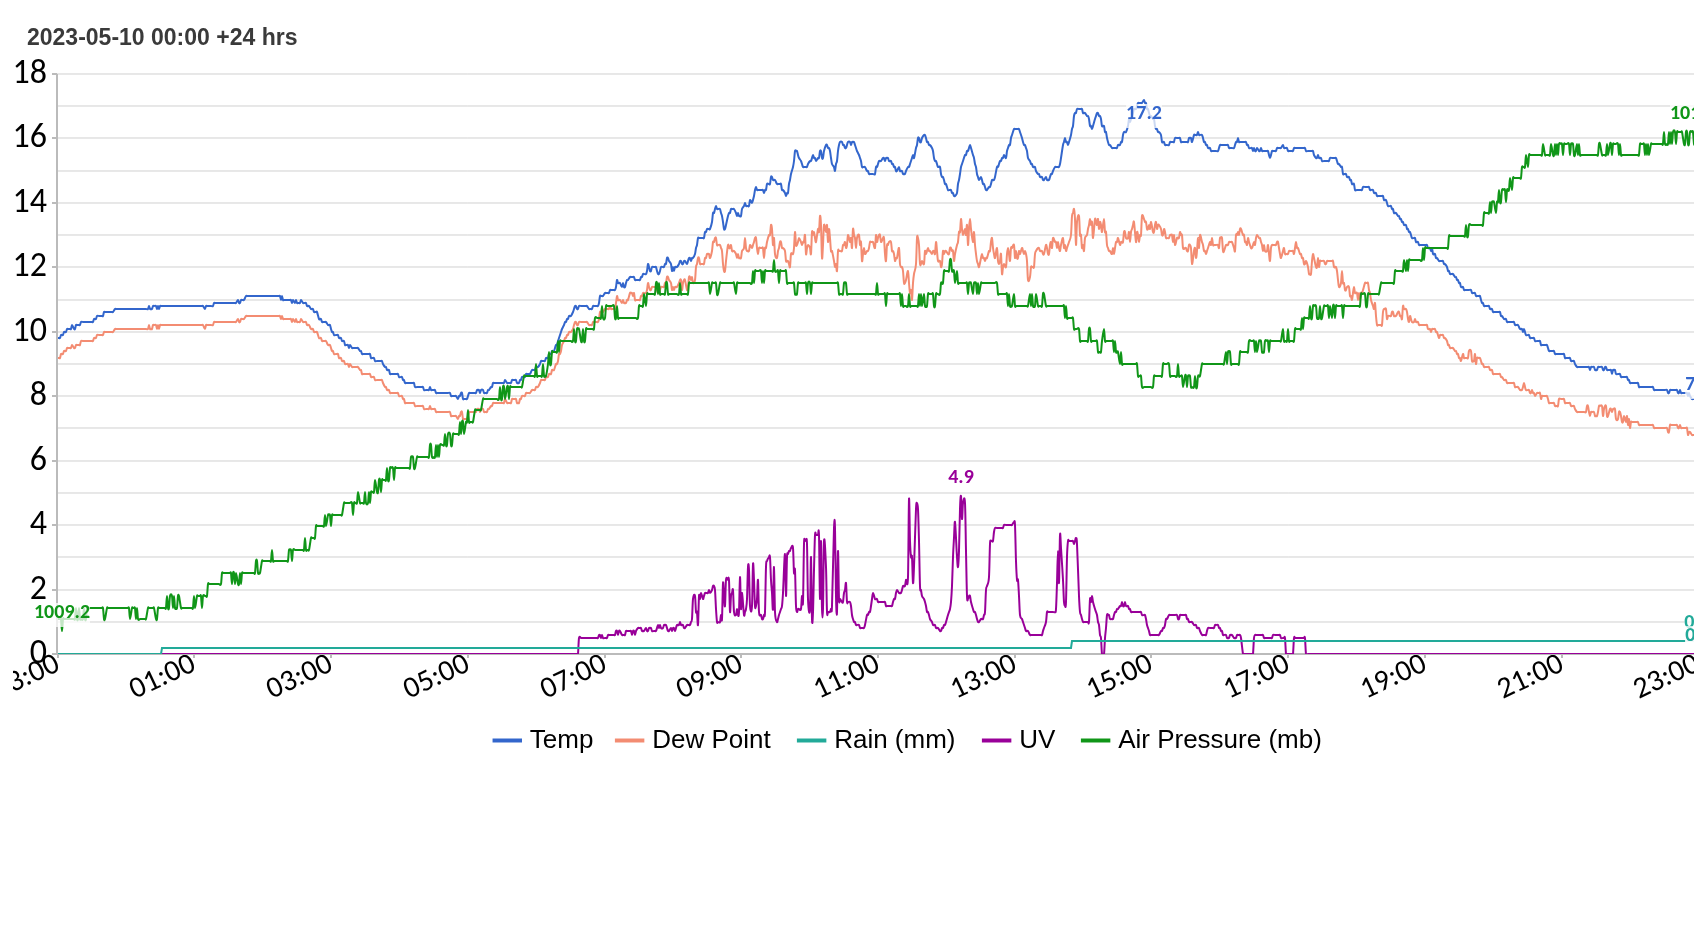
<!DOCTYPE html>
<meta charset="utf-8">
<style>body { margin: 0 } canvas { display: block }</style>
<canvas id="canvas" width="1694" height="946"></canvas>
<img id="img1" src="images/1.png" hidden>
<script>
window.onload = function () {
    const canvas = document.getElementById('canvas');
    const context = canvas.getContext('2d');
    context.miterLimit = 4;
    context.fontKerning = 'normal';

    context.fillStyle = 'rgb(255, 255, 255)';
    context.fillRect(0, 0, 1694, 946);
    context.drawImage(document.getElementById('img1'), 13, 27, 1681, 726);
};
</script>
